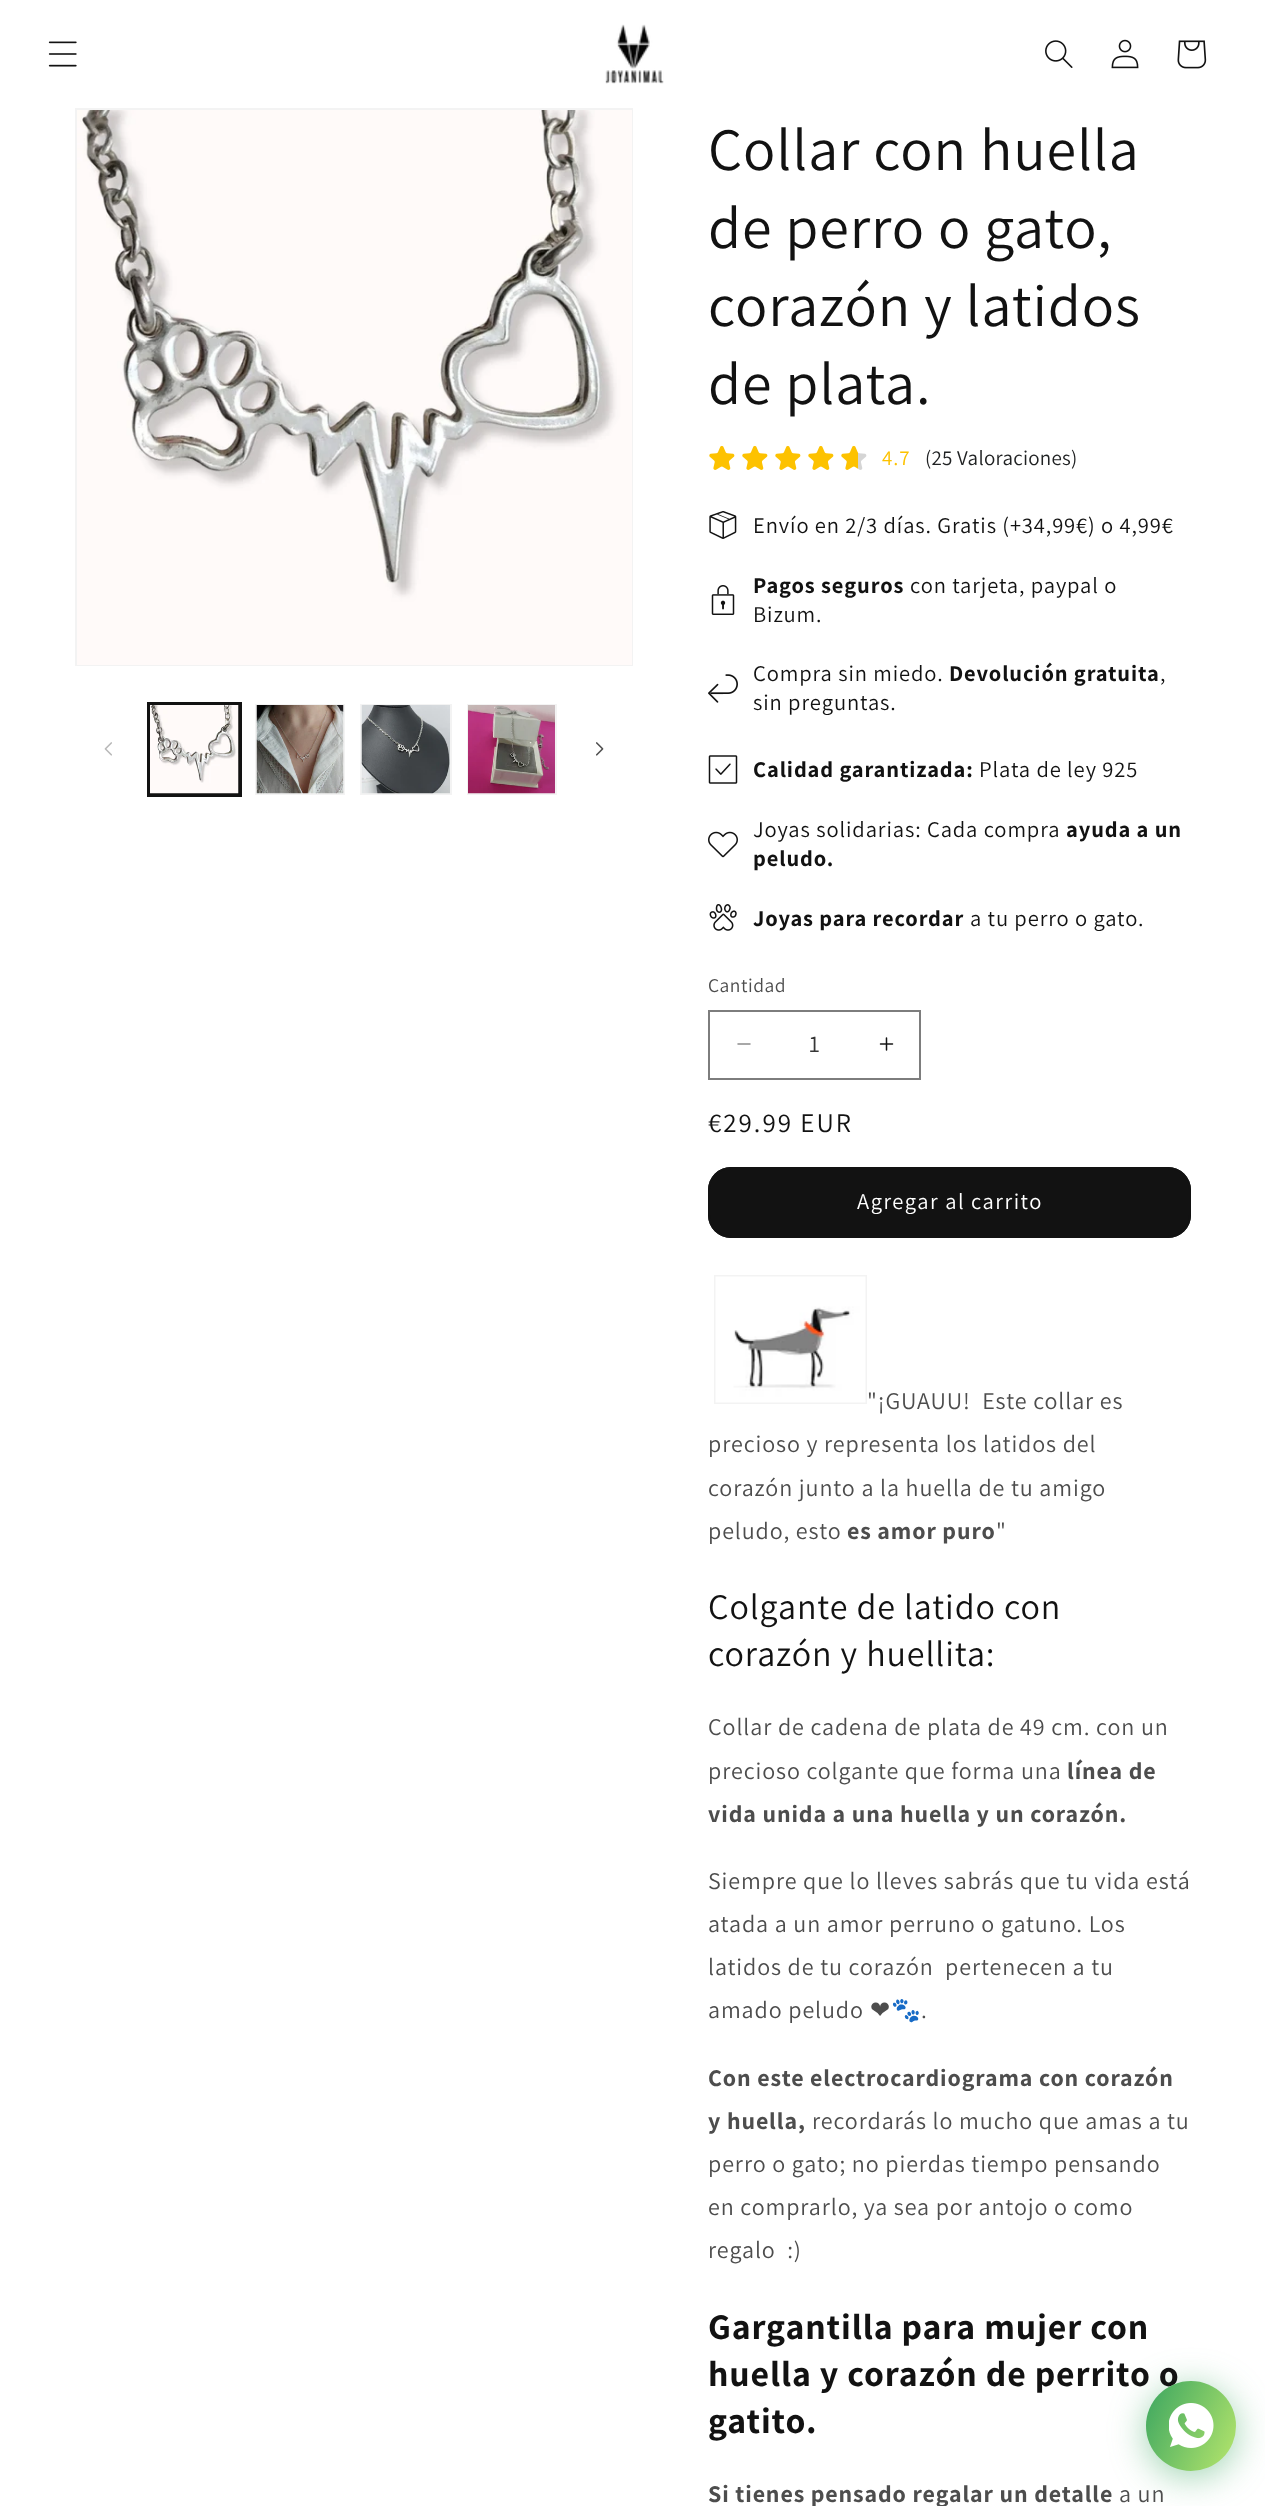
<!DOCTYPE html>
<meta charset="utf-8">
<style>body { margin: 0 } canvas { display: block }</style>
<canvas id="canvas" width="1265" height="2506"></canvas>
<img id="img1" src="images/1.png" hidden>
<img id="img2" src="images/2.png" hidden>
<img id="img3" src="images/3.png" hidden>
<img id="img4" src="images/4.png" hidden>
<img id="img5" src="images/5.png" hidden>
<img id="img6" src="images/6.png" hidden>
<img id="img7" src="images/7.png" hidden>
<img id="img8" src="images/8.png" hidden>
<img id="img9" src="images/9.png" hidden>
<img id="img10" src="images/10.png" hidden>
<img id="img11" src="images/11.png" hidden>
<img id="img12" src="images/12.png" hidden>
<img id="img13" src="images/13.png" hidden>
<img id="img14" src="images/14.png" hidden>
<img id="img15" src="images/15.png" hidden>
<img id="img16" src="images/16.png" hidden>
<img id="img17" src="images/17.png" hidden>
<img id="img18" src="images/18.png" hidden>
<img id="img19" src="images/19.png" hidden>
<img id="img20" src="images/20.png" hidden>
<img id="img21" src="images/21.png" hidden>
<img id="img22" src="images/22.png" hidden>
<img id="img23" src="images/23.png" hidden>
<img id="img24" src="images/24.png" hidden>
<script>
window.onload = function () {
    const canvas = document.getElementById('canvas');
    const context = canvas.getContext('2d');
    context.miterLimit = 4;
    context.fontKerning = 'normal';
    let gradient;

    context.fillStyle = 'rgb(255, 255, 255)';
    context.fillRect(0, 0, 1265, 2506);
    context.drawImage(document.getElementById('img1'), 48, 41, 29, 26);
    context.drawImage(document.getElementById('img2'), 605, 24, 59, 60);
    context.drawImage(document.getElementById('img3'), 1045, 40, 28, 28);
    context.drawImage(document.getElementById('img4'), 1111, 39, 28, 30);
    context.drawImage(document.getElementById('img5'), 1177, 40, 30, 29);
    context.strokeStyle = 'rgb(243, 243, 243)';
    context.lineWidth = 2;
    context.strokeRect(76, 109, 556, 556);
    context.drawImage(document.getElementById('img6'), 77, 110, 555, 555);
    context.drawImage(document.getElementById('img7'), 104, 742, 8, 14);
    context.strokeStyle = 'rgb(18, 18, 18)';
    context.strokeRect(148, 703, 93, 93);
    context.strokeRect(150, 705, 89, 89);
    context.drawImage(document.getElementById('img8'), 150, 705, 89, 89);
    context.strokeStyle = 'rgb(243, 243, 243)';
    context.strokeRect(256, 705, 88, 89);
    context.drawImage(document.getElementById('img9'), 256, 705, 88, 89);
    context.strokeRect(361, 705, 90, 89);
    context.drawImage(document.getElementById('img10'), 361, 705, 89, 89);
    context.strokeRect(468, 705, 88, 89);
    context.drawImage(document.getElementById('img11'), 468, 705, 87, 89);
    context.drawImage(document.getElementById('img12'), 596, 742, 8, 14);
    context.drawImage(document.getElementById('img13'), 709, 445, 26, 25);
    context.drawImage(document.getElementById('img13'), 742, 445, 26, 25);
    context.drawImage(document.getElementById('img13'), 775, 445, 26, 25);
    context.drawImage(document.getElementById('img13'), 808, 445, 26, 25);
    context.drawImage(document.getElementById('img14'), 841, 445, 26, 25);
    context.drawImage(document.getElementById('img15'), 709, 511, 28, 28);
    context.drawImage(document.getElementById('img16'), 711, 585, 24, 30);
    context.drawImage(document.getElementById('img17'), 708, 674, 30, 29);
    context.drawImage(document.getElementById('img18'), 708, 755, 30, 29);
    context.drawImage(document.getElementById('img19'), 708, 831, 30, 27);
    context.drawImage(document.getElementById('img20'), 709, 904, 28, 27);
    context.drawImage(document.getElementById('img21'), 737, 1043, 14, 2);
    context.drawImage(document.getElementById('img22'), 879, 1037, 15, 14);
    context.strokeStyle = 'rgb(125, 125, 125)';
    context.strokeRect(709, 1011, 211, 68);
    context.fillStyle = 'rgb(18, 18, 18)';
    context.beginPath();
    context.roundRect(708, 1167, 483, 71, 23);
    context.fill();
    context.beginPath();
    context.roundRect(709, 1168, 481, 69, 22);
    context.strokeStyle = 'rgb(18, 18, 18)';
    context.stroke();
    context.strokeStyle = 'rgb(243, 243, 243)';
    context.strokeRect(715, 1276, 151, 127);
    context.drawImage(document.getElementById('img23'), 715, 1276, 151, 127);
    context.fillStyle = 'rgba(58, 165, 96, 0.5)';
    context.filter = 'blur(18px)';
    context.beginPath();
    context.roundRect(1146, 2387, 90, 90, 45);
    context.fill();
    context.filter = 'none';
    context.letterSpacing = '0.9px';
    context.font = '60px Assistant';
    context.fillStyle = 'rgb(18, 18, 18)';
    context.fillText('Collar con huella', 708, 170);
    context.fillText('de perro o gato,', 708, 248);
    context.fillText('corazón y latidos', 708, 326);
    context.fillText('de plata.', 708, 404);
    context.font = '21px Assistant';
    context.fillStyle = 'rgb(253, 194, 0)';
    context.fillText('4.7', 882, 465);
    context.letterSpacing = '0.25px';
    context.fillStyle = 'rgb(32, 34, 35)';
    context.fillText('(25 Valoraciones)', 925, 465);
    context.letterSpacing = '0.9px';
    context.font = '22.5px Assistant';
    context.fillStyle = 'rgb(18, 18, 18)';
    context.fillText('Envío en 2/3 días. Gratis (+34,99€) o 4,99€', 753, 533);
    context.font = 'bold 22.5px Assistant';
    context.fillText('Pagos seguros', 753, 593);
    context.font = '22.5px Assistant';
    context.fillText('con tarjeta, paypal o', 910, 593);
    context.fillText('Bizum.', 753, 622);
    context.fillText('Compra sin miedo.', 753, 681);
    context.font = 'bold 22.5px Assistant';
    context.fillText('Devolución gratuita', 949, 681);
    context.font = '22.5px Assistant';
    context.fillText(',', 1160, 681);
    context.fillText('sin preguntas.', 753, 710);
    context.font = 'bold 22.5px Assistant';
    context.fillText('Calidad garantizada:', 753, 777);
    context.font = '22.5px Assistant';
    context.fillText('Plata de ley 925', 979, 777);
    context.fillText('Joyas solidarias: Cada compra', 753, 837);
    context.font = 'bold 22.5px Assistant';
    context.fillText('ayuda a un', 1066, 837);
    context.fillText('peludo.', 753, 866);
    context.fillText('Joyas para recordar', 753, 926);
    context.font = '22.5px Assistant';
    context.fillText('a tu perro o gato.', 970, 926);
    context.letterSpacing = '0.5px';
    context.font = '19.5px Assistant';
    context.fillStyle = 'rgb(77, 77, 77)';
    context.fillText('Cantidad', 708, 992);
    context.letterSpacing = '0px';
    context.font = '24px Assistant';
    context.fillStyle = 'rgb(54, 54, 54)';
    context.fillText('1', 809, 1052);
    context.letterSpacing = '2px';
    context.font = '27px Assistant';
    context.fillStyle = 'rgb(18, 18, 18)';
    context.fillText('€29.99 EUR', 708, 1132);
    context.letterSpacing = '1.5px';
    context.font = '22.5px Assistant';
    context.fillStyle = 'rgb(255, 255, 255)';
    context.fillText('Agregar al carrito', 857, 1209);
    context.letterSpacing = '0.9px';
    context.font = '24px Assistant';
    context.fillStyle = 'rgb(77, 77, 77)';
    context.fillText('"¡GUAUU!  Este collar es', 867, 1409);
    context.fillText('precioso y representa los latidos del', 708, 1452);
    context.fillText('corazón junto a la huella de tu amigo', 708, 1496);
    context.fillText('peludo, esto', 708, 1539);
    context.font = 'bold 24px Assistant';
    context.fillText('es amor puro', 847, 1539);
    context.font = '24px Assistant';
    context.fillText('"', 996, 1539);
    context.font = '36px Assistant';
    context.fillStyle = 'rgb(18, 18, 18)';
    context.fillText('Colgante de latido con', 708, 1619);
    context.fillText('corazón y huellita:', 708, 1666);
    context.font = '24px Assistant';
    context.fillStyle = 'rgb(77, 77, 77)';
    context.fillText('Collar de cadena de plata de 49 cm. con un', 708, 1735);
    context.fillText('precioso colgante que forma una', 708, 1779);
    context.font = 'bold 24px Assistant';
    context.fillText('línea de', 1067, 1779);
    context.fillText('vida unida a una huella y un corazón.', 708, 1822);
    context.font = '24px Assistant';
    context.fillText('Siempre que lo lleves sabrás que tu vida está', 708, 1889);
    context.fillText('atada a un amor perruno o gatuno. Los', 708, 1932);
    context.fillText('latidos de tu corazón  pertenecen a tu', 708, 1975);
    context.fillText('amado peludo', 708, 2018);
    context.font = '24px DejaVu Sans';
    context.fillText('❤', 870, 2018);
    context.font = '24px Noto Color Emoji';
    context.fillText('🐾', 891, 2018);
    context.font = '24px Assistant';
    context.fillText('.', 921, 2018);
    context.font = 'bold 24px Assistant';
    context.fillText('Con este electrocardiograma con corazón', 708, 2086);
    context.fillText('y huella,', 708, 2129);
    context.font = '24px Assistant';
    context.fillText('recordarás lo mucho que amas a tu', 812, 2129);
    context.fillText('perro o gato; no pierdas tiempo pensando', 708, 2172);
    context.fillText('en comprarlo, ya sea por antojo o como', 708, 2215);
    context.fillText('regalo  :)', 708, 2258);
    context.font = 'bold 36px Assistant';
    context.fillStyle = 'rgb(18, 18, 18)';
    context.fillText('Gargantilla para mujer con', 708, 2339);
    context.fillText('huella y corazón de perrito o', 708, 2386);
    context.fillText('gatito.', 708, 2433);
    context.font = 'bold 24px Assistant';
    context.fillStyle = 'rgb(77, 77, 77)';
    context.fillText('Si tienes pensado regalar un detalle', 708, 2502);
    context.font = '24px Assistant';
    context.fillText('a un', 1119, 2502);
    gradient = context.createLinearGradient(1137, 2400, 1245, 2451);
    gradient.addColorStop(0, 'rgb(58, 165, 96)');
    gradient.addColorStop(1, 'rgb(183, 230, 108)');
    context.fillStyle = gradient;
    context.beginPath();
    context.arc(1191, 2426, 45, 0, 2 * Math.PI);
    context.fill();
    context.drawImage(document.getElementById('img24'), 1169, 2403, 45, 45);
};
</script>
